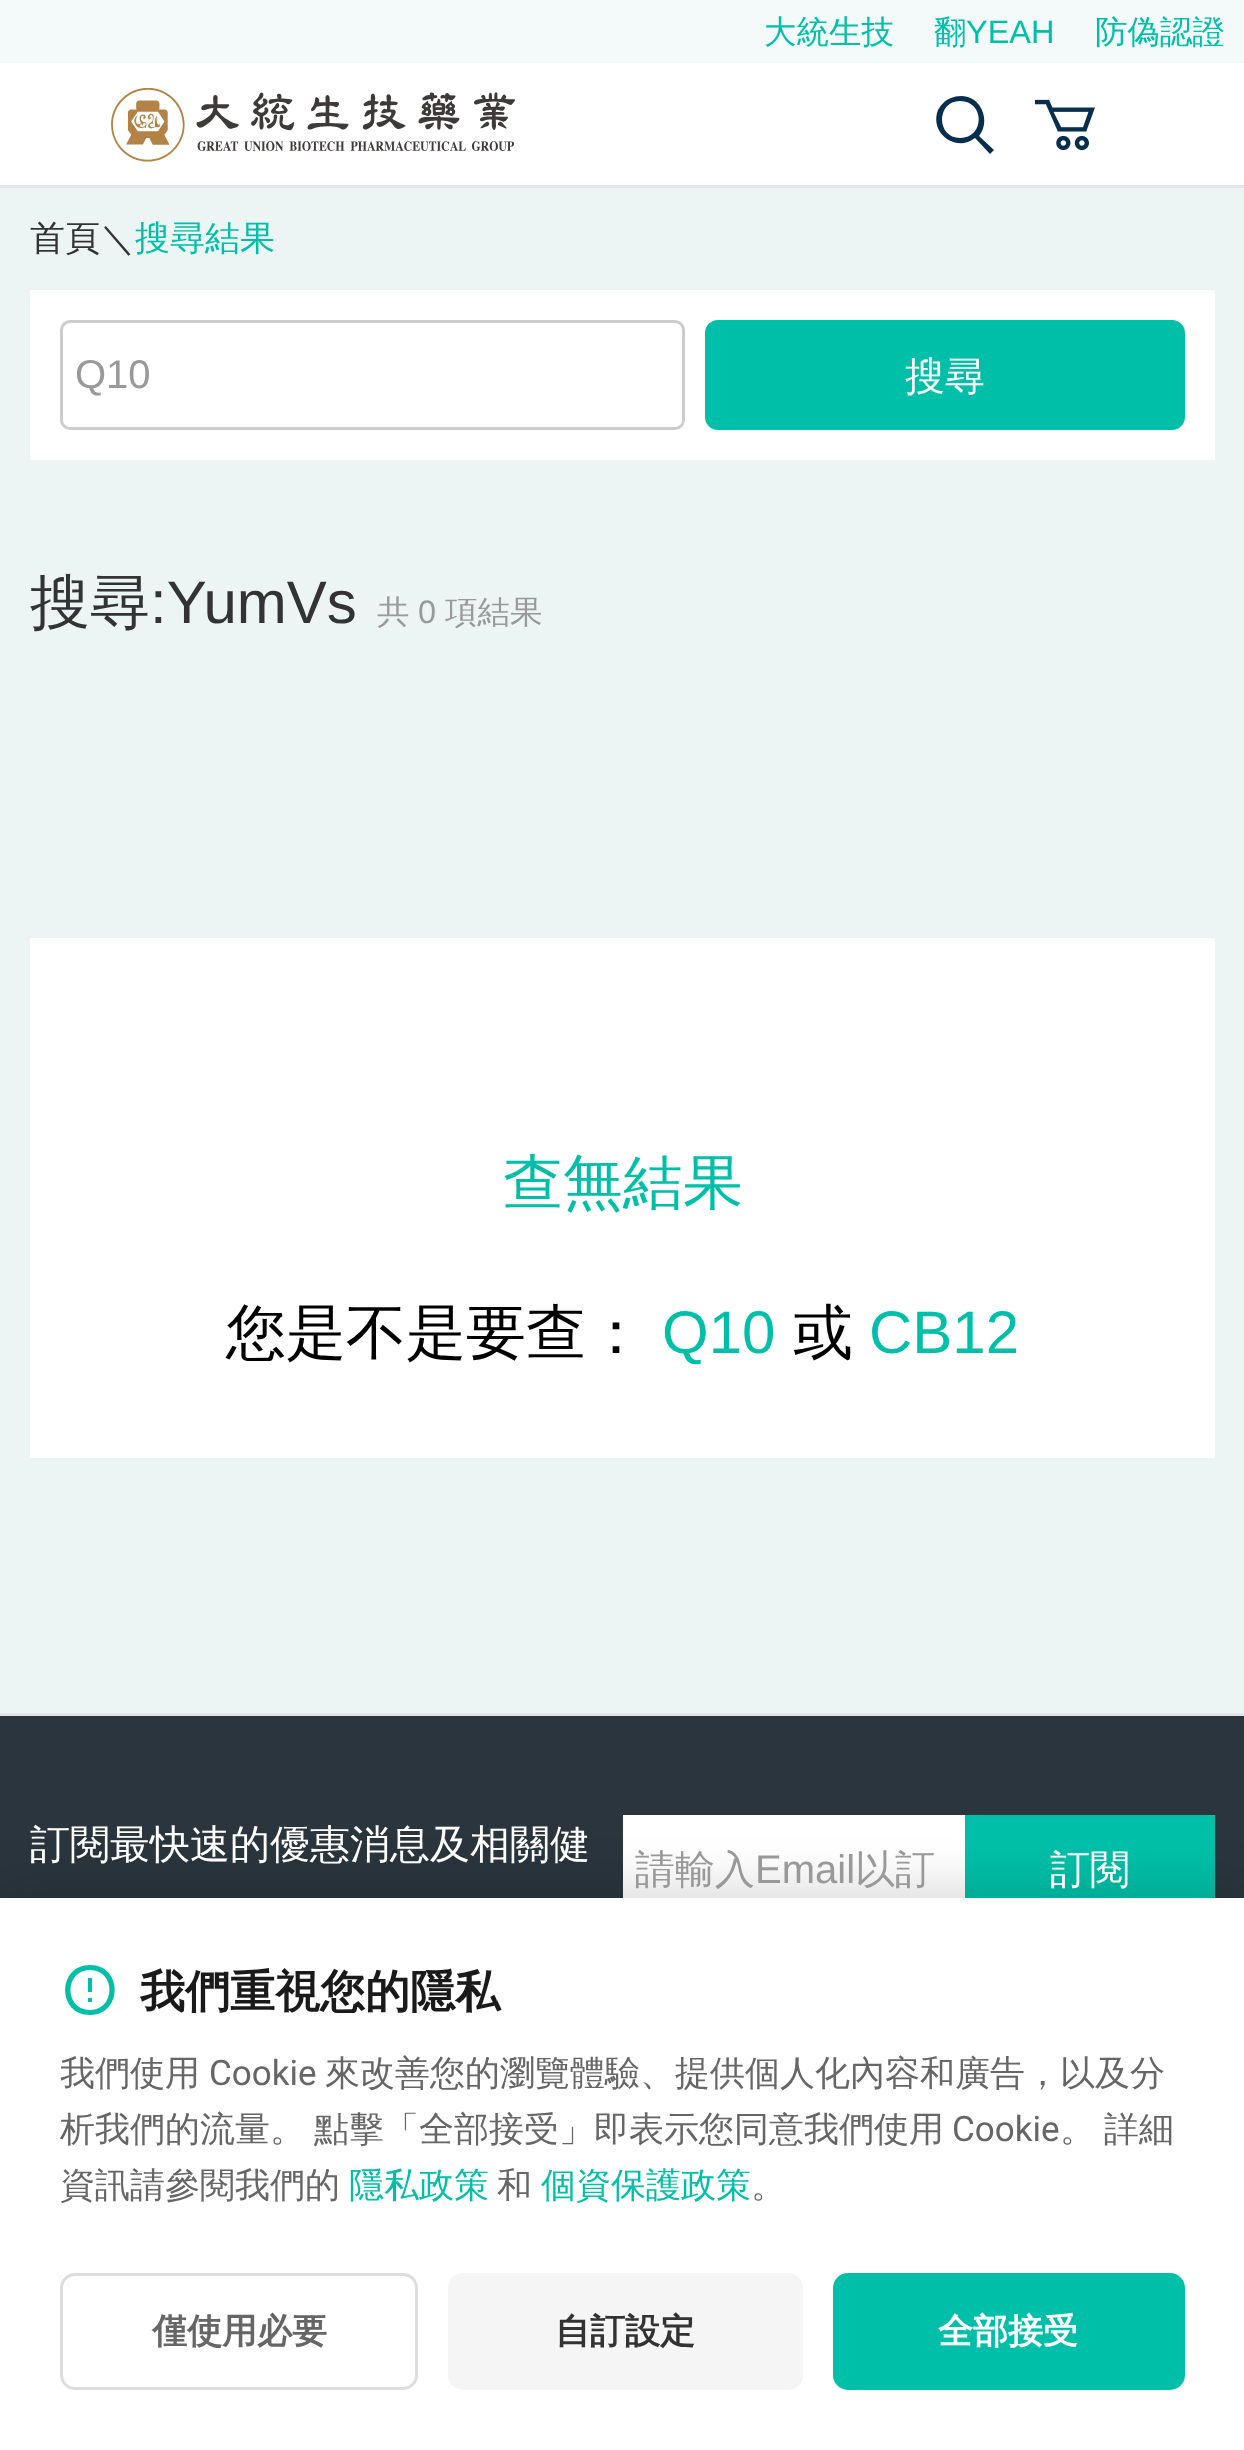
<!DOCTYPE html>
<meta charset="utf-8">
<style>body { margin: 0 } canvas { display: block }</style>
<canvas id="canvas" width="1244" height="2450"></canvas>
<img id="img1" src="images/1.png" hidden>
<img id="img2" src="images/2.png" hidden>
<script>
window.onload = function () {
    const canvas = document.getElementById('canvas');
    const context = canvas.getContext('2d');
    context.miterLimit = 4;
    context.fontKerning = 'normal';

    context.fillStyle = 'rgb(237, 245, 244)';
    context.fillRect(0, 0, 1244, 2450);
    context.fillStyle = 'rgb(243, 250, 249)';
    context.fillRect(0, 0, 1244, 63);
    context.fillStyle = 'rgb(255, 255, 255)';
    context.fillRect(0, 63, 1244, 122);
    context.fillStyle = 'rgb(229, 229, 229)';
    context.fillRect(0, 185, 1244, 3);
    context.drawImage(document.getElementById('img1'), 111, 88, 405, 74);
    context.fillStyle = 'rgb(8, 46, 77)';
    context.beginPath();
    context.moveTo(994, 150);
    context.lineTo(979, 136);
    context.bezierCurveTo(988, 125, 985, 108, 974, 100);
    context.bezierCurveTo(967, 95, 958, 95, 951, 98);
    context.bezierCurveTo(945, 100, 941, 105, 938, 110);
    context.bezierCurveTo(929, 133, 956, 153, 975, 138);
    context.lineTo(990, 154);
    context.closePath();
    context.moveTo(960, 138);
    context.bezierCurveTo(936, 138, 936, 101, 960, 101);
    context.bezierCurveTo(985, 101, 985, 138, 960, 138);
    context.closePath();
    context.fill();
    context.drawImage(document.getElementById('img2'), 1035, 99, 60, 52);
    context.fillStyle = 'rgb(255, 255, 255)';
    context.fillRect(30, 290, 1185, 170);
    context.beginPath();
    context.roundRect(61.5, 321.5, 622, 107, 8.5);
    context.strokeStyle = 'rgb(204, 204, 204)';
    context.lineWidth = 3;
    context.stroke();
    context.fillStyle = 'rgb(0, 191, 168)';
    context.beginPath();
    context.roundRect(706.5, 321.5, 477, 107, 11.5);
    context.fill();
    context.strokeStyle = 'rgb(0, 191, 168)';
    context.stroke();
    context.fillStyle = 'rgb(255, 255, 255)';
    context.fillRect(30, 938, 1185, 520);
    context.fillStyle = 'rgb(42, 53, 62)';
    context.fillRect(0, 1716, 1244, 182);
    context.fillStyle = 'rgb(229, 229, 229)';
    context.fillRect(0, 1713, 1244, 3);
    context.fillStyle = 'rgb(255, 255, 255)';
    context.fillRect(623, 1815, 342, 83);
    context.fillStyle = 'rgb(0, 191, 168)';
    context.fillRect(965, 1815, 250, 83);
    context.fillStyle = 'rgba(0, 0, 0, 0.15)';
    context.filter = 'blur(25px)';
    context.beginPath();
    context.rect(0, 1888, 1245, 552);
    context.fill();
    context.filter = 'none';
    context.fillStyle = 'rgb(255, 255, 255)';
    context.fillRect(0, 1898, 1244, 552);
    context.fillStyle = 'rgb(0, 191, 168)';
    context.beginPath();
    context.moveTo(90, 1965);
    context.bezierCurveTo(57, 1965, 57, 2015, 90, 2015);
    context.bezierCurveTo(123, 2015, 123, 1965, 90, 1965);
    context.closePath();
    context.moveTo(90, 2010);
    context.bezierCurveTo(64, 2010, 64, 1970, 90, 1970);
    context.bezierCurveTo(116, 1970, 116, 2010, 90, 2010);
    context.closePath();
    context.moveTo(88, 1978);
    context.lineTo(92, 1978);
    context.lineTo(92, 1992);
    context.lineTo(88, 1992);
    context.closePath();
    context.moveTo(88, 1998);
    context.lineTo(92, 1998);
    context.lineTo(92, 2002);
    context.lineTo(88, 2002);
    context.closePath();
    context.fill();
    context.beginPath();
    context.roundRect(61.5, 2274.5, 355, 114, 13.5);
    context.strokeStyle = 'rgb(221, 221, 221)';
    context.stroke();
    context.fillStyle = 'rgb(245, 245, 245)';
    context.beginPath();
    context.roundRect(448, 2273, 355, 117, 15);
    context.fill();
    context.fillStyle = 'rgb(0, 191, 168)';
    context.beginPath();
    context.roundRect(833, 2273, 352, 117, 15);
    context.fill();
    context.font = '500 32.5px WenQuanYi Zen Hei';
    context.fillText('大統生技', 764, 43);
    context.fillText('翻', 934, 43);
    context.font = '32.5px Liberation Sans';
    context.fillText('YEAH', 966, 43);
    context.font = '500 32.5px WenQuanYi Zen Hei';
    context.fillText('防偽認證', 1095, 43);
    context.font = '500 35px WenQuanYi Zen Hei';
    context.fillStyle = 'rgb(51, 51, 51)';
    context.fillText('首頁＼', 30, 250);
    context.fillStyle = 'rgb(0, 191, 168)';
    context.fillText('搜尋結果', 135, 250);
    context.font = '40px Liberation Sans';
    context.fillStyle = 'rgb(153, 153, 153)';
    context.fillText('Q10', 75, 388);
    context.font = '500 40px WenQuanYi Zen Hei';
    context.fillStyle = 'rgb(255, 255, 255)';
    context.fillText('搜尋', 905, 390);
    context.font = '500 60px WenQuanYi Zen Hei';
    context.fillStyle = 'rgb(51, 51, 51)';
    context.fillText('搜尋', 30, 623);
    context.font = '60px Liberation Sans';
    context.fillText(':YumVs', 150, 623);
    context.font = '500 32.5px WenQuanYi Zen Hei';
    context.fillStyle = 'rgb(153, 153, 153)';
    context.fillText('共', 377, 623);
    context.font = '32.5px Liberation Sans';
    context.fillText('0', 418, 623);
    context.font = '500 32.5px WenQuanYi Zen Hei';
    context.fillText('項結果', 445, 623);
    context.font = '500 60px WenQuanYi Zen Hei';
    context.fillStyle = 'rgb(0, 191, 168)';
    context.fillText('查無結果', 503, 1203);
    context.fillStyle = 'rgb(0, 0, 0)';
    context.fillText('您是不是要查：', 226, 1353);
    context.font = '60px Liberation Sans';
    context.fillStyle = 'rgb(0, 191, 168)';
    context.fillText('Q10', 662, 1353);
    context.font = '500 60px WenQuanYi Zen Hei';
    context.fillStyle = 'rgb(0, 0, 0)';
    context.fillText('或', 793, 1353);
    context.font = '60px Liberation Sans';
    context.fillStyle = 'rgb(0, 191, 168)';
    context.fillText('CB12', 869, 1353);
    context.font = '500 40px WenQuanYi Zen Hei';
    context.fillStyle = 'rgb(255, 255, 255)';
    context.fillText('訂閱最快速的優惠消息及相關健', 30, 1858);
    context.fillStyle = 'rgb(153, 153, 153)';
    context.fillText('請輸入', 635, 1883);
    context.font = '40px Liberation Sans';
    context.fillText('Email', 755, 1883);
    context.font = '500 40px WenQuanYi Zen Hei';
    context.fillText('以訂', 855, 1883);
    context.fillStyle = 'rgb(255, 255, 255)';
    context.fillText('訂閱', 1050, 1883);
    context.font = 'bold 45px WenQuanYi Zen Hei';
    context.fillStyle = 'rgb(26, 26, 26)';
    context.fillText('我們重視您的隱私', 140, 2007);
    context.font = '500 35px WenQuanYi Zen Hei';
    context.fillStyle = 'rgb(102, 102, 102)';
    context.fillText('我們使用', 60, 2085);
    context.font = '35px Roboto';
    context.fillText('Cookie', 209, 2085);
    context.font = '500 35px WenQuanYi Zen Hei';
    context.fillText('來改善您的瀏覽體驗、提供個人化內容和廣告，以及分', 325, 2085);
    context.fillText('析我們的流量。', 60, 2141);
    context.fillText('點擊「全部接受」即表示您同意我們使用', 314, 2141);
    context.font = '35px Roboto';
    context.fillText('Cookie', 952, 2141);
    context.font = '500 35px WenQuanYi Zen Hei';
    context.fillText('。', 1060, 2141);
    context.fillText('詳細', 1104, 2141);
    context.fillText('資訊請參閱我們的', 60, 2197);
    context.fillStyle = 'rgb(0, 191, 168)';
    context.fillText('隱私政策', 349, 2197);
    context.fillStyle = 'rgb(102, 102, 102)';
    context.fillText('和', 497, 2197);
    context.fillStyle = 'rgb(0, 191, 168)';
    context.fillText('個資保護政策', 541, 2197);
    context.fillStyle = 'rgb(102, 102, 102)';
    context.fillText('。', 751, 2197);
    context.font = 'bold 35px WenQuanYi Zen Hei';
    context.fillText('僅使用必要', 152, 2343);
    context.fillStyle = 'rgb(51, 51, 51)';
    context.fillText('自訂設定', 555, 2343);
    context.fillStyle = 'rgb(255, 255, 255)';
    context.fillText('全部接受', 938, 2343);
};
</script>
